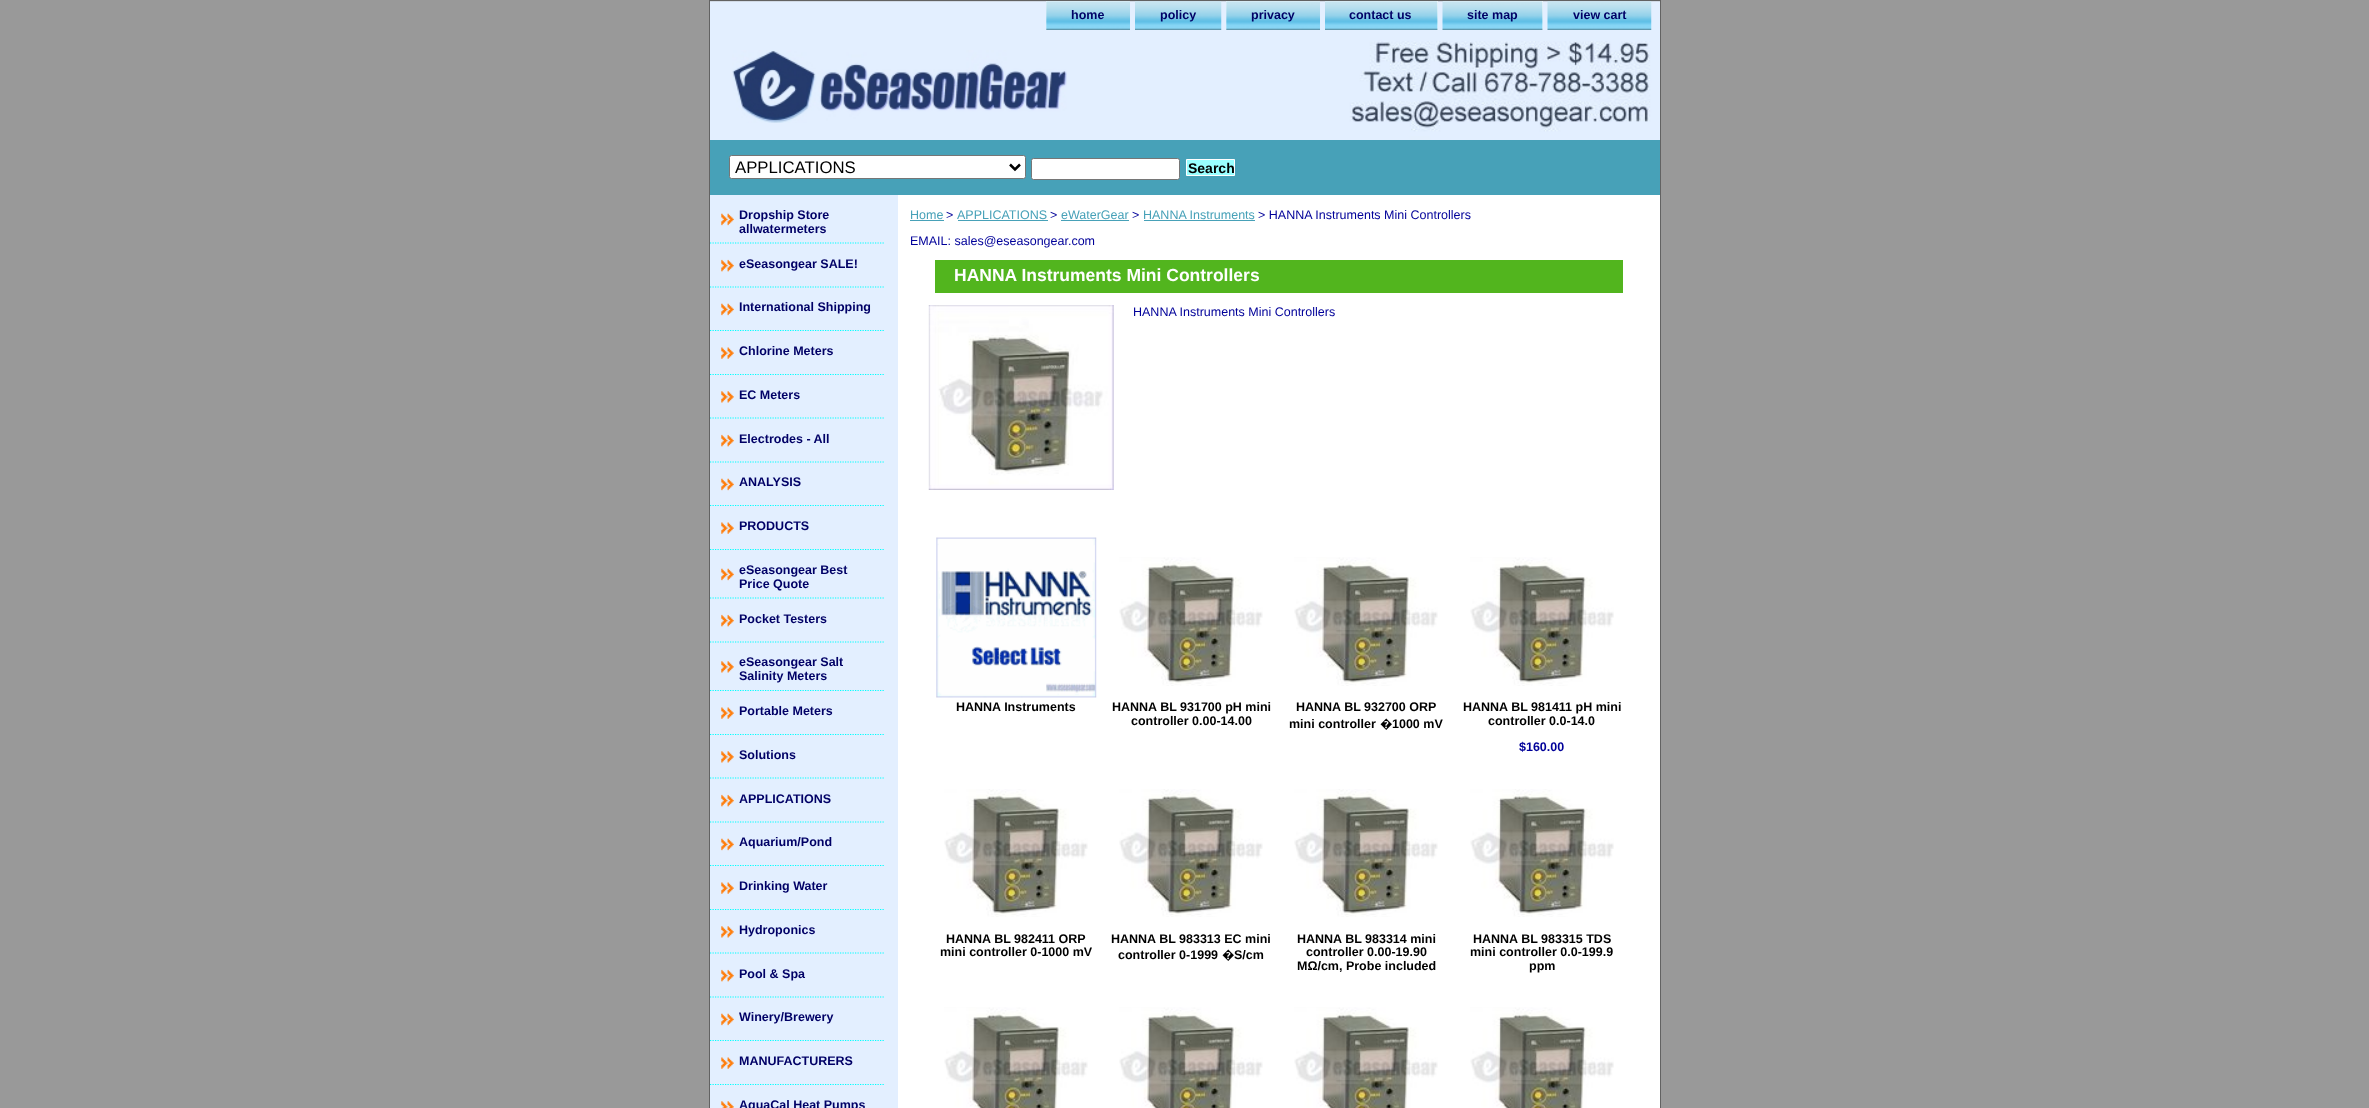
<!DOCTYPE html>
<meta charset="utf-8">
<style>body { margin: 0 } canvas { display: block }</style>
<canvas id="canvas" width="2369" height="1108"></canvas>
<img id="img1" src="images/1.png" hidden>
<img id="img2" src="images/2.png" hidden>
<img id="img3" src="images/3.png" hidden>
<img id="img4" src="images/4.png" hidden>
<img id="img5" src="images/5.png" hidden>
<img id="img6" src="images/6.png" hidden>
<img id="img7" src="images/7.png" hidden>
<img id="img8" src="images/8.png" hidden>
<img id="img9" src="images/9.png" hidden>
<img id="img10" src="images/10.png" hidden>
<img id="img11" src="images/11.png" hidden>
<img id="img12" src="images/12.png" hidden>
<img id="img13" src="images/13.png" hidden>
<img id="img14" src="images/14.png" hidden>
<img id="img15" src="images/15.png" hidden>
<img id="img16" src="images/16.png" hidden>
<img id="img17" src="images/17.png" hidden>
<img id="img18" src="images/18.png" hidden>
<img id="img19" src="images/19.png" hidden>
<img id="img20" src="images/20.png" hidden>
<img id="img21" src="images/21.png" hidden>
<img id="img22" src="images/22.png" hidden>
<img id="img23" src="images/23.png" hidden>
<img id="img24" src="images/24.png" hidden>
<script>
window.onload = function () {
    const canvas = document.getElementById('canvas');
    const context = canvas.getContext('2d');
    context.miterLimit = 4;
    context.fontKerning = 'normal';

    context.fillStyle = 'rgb(153, 153, 153)';
    context.fillRect(0, 0, 2369, 1108);
    context.strokeStyle = 'rgb(98, 98, 98)';
    context.strokeRect(709.5, 0.5, 951, 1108);
    context.drawImage(document.getElementById('img1'), 710, 1, 950, 139);
    context.fillStyle = 'rgb(255, 255, 255)';
    context.fillRect(1046, 1, 84, 29);
    context.drawImage(document.getElementById('img2'), 1046, 1, 84, 29);
    context.drawImage(document.getElementById('img3'), 1135, 1, 87, 29);
    context.fillRect(1226, 1, 94, 29);
    context.drawImage(document.getElementById('img4'), 1226, 1, 94, 29);
    context.fillRect(1325, 1, 113, 29);
    context.drawImage(document.getElementById('img5'), 1325, 1, 113, 29);
    context.fillRect(1443, 1, 100, 29);
    context.drawImage(document.getElementById('img6'), 1442, 1, 101, 29);
    context.drawImage(document.getElementById('img7'), 1547, 1, 105, 29);
    context.drawImage(document.getElementById('img8'), 732, 50, 335, 73);
    context.fillStyle = 'rgb(71, 161, 184)';
    context.fillRect(710, 140, 950, 55);
    context.fillStyle = 'rgb(255, 255, 255)';
    context.beginPath();
    context.roundRect(729.5, 155.5, 296, 23, 2);
    context.fill();
    context.strokeStyle = 'rgb(118, 118, 118)';
    context.stroke();
    context.beginPath();
    context.moveTo(1010, 164.5);
    context.lineTo(1015, 169.5);
    context.lineTo(1020, 164.5);
    context.strokeStyle = 'rgb(0, 0, 0)';
    context.lineWidth = 2.5;
    context.stroke();
    context.beginPath();
    context.roundRect(1031.5, 158.5, 148, 21, 2);
    context.fill();
    context.strokeStyle = 'rgb(118, 118, 118)';
    context.lineWidth = 1;
    context.stroke();
    context.fillStyle = 'rgb(153, 255, 255)';
    context.beginPath();
    context.rect(1186.5, 159.5, 48, 16);
    context.fill();
    context.strokeStyle = 'rgb(255, 255, 255)';
    context.stroke();
    context.fillStyle = 'rgb(255, 255, 255)';
    context.fillRect(898, 195, 762, 913);
    context.fillStyle = 'rgb(227, 239, 255)';
    context.fillRect(710, 195, 188, 913);
    context.drawImage(document.getElementById('img9'), 721, 213, 13, 13);
    context.beginPath();
    context.moveTo(710, 243);
    context.lineTo(885, 243);
    context.strokeStyle = 'rgb(0, 255, 255)';
    context.lineWidth = 1.2;
    context.setLineDash([1.25, 1.25]);
    context.stroke();
    context.drawImage(document.getElementById('img10'), 721, 259, 13, 13);
    context.beginPath();
    context.moveTo(710, 287);
    context.lineTo(885, 287);
    context.stroke();
    context.drawImage(document.getElementById('img11'), 721, 303, 13, 13);
    context.beginPath();
    context.moveTo(710, 330.5);
    context.lineTo(885, 330.5);
    context.stroke();
    context.drawImage(document.getElementById('img12'), 721, 347, 13, 12);
    context.beginPath();
    context.moveTo(710, 374.5);
    context.lineTo(885, 374.5);
    context.stroke();
    context.drawImage(document.getElementById('img13'), 721, 391, 13, 12);
    context.beginPath();
    context.moveTo(710, 418);
    context.lineTo(885, 418);
    context.stroke();
    context.drawImage(document.getElementById('img10'), 721, 434, 13, 13);
    context.beginPath();
    context.moveTo(710, 462);
    context.lineTo(885, 462);
    context.stroke();
    context.drawImage(document.getElementById('img9'), 721, 478, 13, 13);
    context.beginPath();
    context.moveTo(710, 505.5);
    context.lineTo(885, 505.5);
    context.stroke();
    context.drawImage(document.getElementById('img12'), 721, 522, 13, 12);
    context.beginPath();
    context.moveTo(710, 549.5);
    context.lineTo(885, 549.5);
    context.stroke();
    context.drawImage(document.getElementById('img9'), 721, 568, 13, 13);
    context.beginPath();
    context.moveTo(710, 598);
    context.lineTo(885, 598);
    context.stroke();
    context.drawImage(document.getElementById('img10'), 721, 614, 13, 13);
    context.beginPath();
    context.moveTo(710, 642);
    context.lineTo(885, 642);
    context.stroke();
    context.drawImage(document.getElementById('img13'), 721, 661, 13, 12);
    context.beginPath();
    context.moveTo(710, 690.5);
    context.lineTo(885, 690.5);
    context.stroke();
    context.drawImage(document.getElementById('img12'), 721, 707, 13, 12);
    context.beginPath();
    context.moveTo(710, 734.5);
    context.lineTo(885, 734.5);
    context.stroke();
    context.drawImage(document.getElementById('img13'), 721, 751, 13, 12);
    context.beginPath();
    context.moveTo(710, 778);
    context.lineTo(885, 778);
    context.stroke();
    context.drawImage(document.getElementById('img10'), 721, 794, 13, 13);
    context.beginPath();
    context.moveTo(710, 822);
    context.lineTo(885, 822);
    context.stroke();
    context.drawImage(document.getElementById('img9'), 721, 838, 13, 13);
    context.beginPath();
    context.moveTo(710, 865.5);
    context.lineTo(885, 865.5);
    context.stroke();
    context.drawImage(document.getElementById('img12'), 721, 882, 13, 12);
    context.beginPath();
    context.moveTo(710, 909.5);
    context.lineTo(885, 909.5);
    context.stroke();
    context.drawImage(document.getElementById('img13'), 721, 926, 13, 12);
    context.beginPath();
    context.moveTo(710, 953);
    context.lineTo(885, 953);
    context.stroke();
    context.drawImage(document.getElementById('img10'), 721, 969, 13, 13);
    context.beginPath();
    context.moveTo(710, 997);
    context.lineTo(885, 997);
    context.stroke();
    context.drawImage(document.getElementById('img9'), 721, 1013, 13, 13);
    context.beginPath();
    context.moveTo(710, 1040.5);
    context.lineTo(885, 1040.5);
    context.stroke();
    context.drawImage(document.getElementById('img12'), 721, 1057, 13, 12);
    context.beginPath();
    context.moveTo(710, 1084.5);
    context.lineTo(885, 1084.5);
    context.stroke();
    context.drawImage(document.getElementById('img14'), 721, 1101, 13, 7);
    context.fillStyle = 'rgb(71, 161, 184)';
    context.fillRect(910, 220, 34, 1);
    context.fillRect(958, 220, 90, 1);
    context.fillRect(1061, 220, 68, 1);
    context.fillRect(1144, 220, 111, 1);
    context.fillStyle = 'rgb(82, 181, 30)';
    context.fillRect(935, 260, 688, 33);
    context.drawImage(document.getElementById('img15'), 928, 305, 186, 185);
    context.drawImage(document.getElementById('img16'), 936, 537, 161, 161);
    context.drawImage(document.getElementById('img17'), 1119, 557, 144, 129);
    context.drawImage(document.getElementById('img17'), 1294, 557, 144, 129);
    context.drawImage(document.getElementById('img18'), 1470, 557, 144, 129);
    context.drawImage(document.getElementById('img19'), 944, 789, 144, 128);
    context.drawImage(document.getElementById('img20'), 1119, 789, 144, 128);
    context.drawImage(document.getElementById('img20'), 1294, 789, 144, 128);
    context.drawImage(document.getElementById('img21'), 1470, 789, 144, 128);
    context.drawImage(document.getElementById('img22'), 944, 1007, 144, 101);
    context.drawImage(document.getElementById('img23'), 1119, 1007, 144, 101);
    context.drawImage(document.getElementById('img23'), 1294, 1007, 144, 101);
    context.drawImage(document.getElementById('img24'), 1470, 1007, 144, 101);
    context.font = 'bold 12.5px Liberation Sans';
    context.fillStyle = 'rgb(0, 0, 102)';
    context.fillText('home', 1071, 19);
    context.fillText('policy', 1160, 19);
    context.fillText('privacy', 1251, 19);
    context.fillText('contact us', 1349, 19);
    context.fillText('site map', 1467, 19);
    context.fillText('view cart', 1573, 19);
    context.font = '16.75px Liberation Sans';
    context.fillStyle = 'rgb(0, 0, 0)';
    context.fillText('APPLICATIONS', 735, 173);
    context.font = 'bold 14px Liberation Sans';
    context.fillText('Search', 1188, 173);
    context.font = 'bold 12.5px Liberation Sans';
    context.fillStyle = 'rgb(0, 0, 102)';
    context.fillText('Dropship Store', 739, 219);
    context.fillText('allwatermeters', 739, 233);
    context.fillText('eSeasongear SALE!', 739, 268);
    context.fillText('International Shipping', 739, 311);
    context.fillText('Chlorine Meters', 739, 355);
    context.fillText('EC Meters', 739, 399);
    context.fillText('Electrodes - All', 739, 443);
    context.fillText('ANALYSIS', 739, 486);
    context.fillText('PRODUCTS', 739, 530);
    context.fillText('eSeasongear Best', 739, 574);
    context.fillText('Price Quote', 739, 588);
    context.fillText('Pocket Testers', 739, 623);
    context.fillText('eSeasongear Salt', 739, 666);
    context.fillText('Salinity Meters', 739, 680);
    context.fillText('Portable Meters', 739, 715);
    context.fillText('Solutions', 739, 759);
    context.fillText('APPLICATIONS', 739, 803);
    context.fillText('Aquarium/Pond', 739, 846);
    context.fillText('Drinking Water', 739, 890);
    context.fillText('Hydroponics', 739, 934);
    context.fillText('Pool & Spa', 739, 978);
    context.fillText('Winery/Brewery', 739, 1021);
    context.fillText('MANUFACTURERS', 739, 1065);
    context.fillText('AquaCal Heat Pumps', 739, 1109);
    context.font = '12.5px Liberation Sans';
    context.fillStyle = 'rgb(71, 161, 184)';
    context.fillText('Home', 910, 219);
    context.fillStyle = 'rgb(0, 0, 153)';
    context.fillText('>', 946, 219);
    context.fillStyle = 'rgb(71, 161, 184)';
    context.fillText('APPLICATIONS', 957, 219);
    context.fillStyle = 'rgb(0, 0, 153)';
    context.fillText('>', 1050, 219);
    context.fillStyle = 'rgb(71, 161, 184)';
    context.fillText('eWaterGear', 1061, 219);
    context.fillStyle = 'rgb(0, 0, 153)';
    context.fillText('>', 1132, 219);
    context.fillStyle = 'rgb(71, 161, 184)';
    context.fillText('HANNA Instruments', 1143, 219);
    context.fillStyle = 'rgb(0, 0, 153)';
    context.fillText('> HANNA Instruments Mini Controllers', 1258, 219);
    context.fillText('EMAIL: sales@eseasongear.com', 910, 245);
    context.font = 'bold 17.5px Liberation Sans';
    context.fillStyle = 'rgb(255, 255, 255)';
    context.fillText('HANNA Instruments Mini Controllers', 954, 281);
    context.font = '12.5px Liberation Sans';
    context.fillStyle = 'rgb(0, 0, 153)';
    context.fillText('HANNA Instruments Mini Controllers', 1133, 316);
    context.font = 'bold 12.5px Liberation Sans';
    context.fillStyle = 'rgb(0, 0, 0)';
    context.fillText('HANNA Instruments', 956, 711);
    context.fillText('HANNA BL 931700 pH mini', 1112, 711);
    context.fillText('controller 0.00-14.00', 1131, 725);
    context.fillText('HANNA BL 932700 ORP', 1296, 711);
    context.fillText('mini controller', 1289, 728);
    context.font = 'bold 12.5px Noto Sans';
    context.fillText('�', 1380, 728);
    context.font = 'bold 12.5px Liberation Sans';
    context.fillText('1000 mV', 1392, 728);
    context.fillText('HANNA BL 981411 pH mini', 1463, 711);
    context.fillText('controller 0.0-14.0', 1488, 725);
    context.fillStyle = 'rgb(0, 0, 153)';
    context.fillText('$160.00', 1519, 751);
    context.fillStyle = 'rgb(0, 0, 0)';
    context.fillText('HANNA BL 982411 ORP', 946, 943);
    context.fillText('mini controller 0-1000 mV', 940, 956);
    context.fillText('HANNA BL 983313 EC mini', 1111, 943);
    context.fillText('controller 0-1999', 1118, 959);
    context.font = 'bold 12.5px Noto Sans';
    context.fillText('�', 1222, 959);
    context.font = 'bold 12.5px Liberation Sans';
    context.fillText('S/cm', 1234, 959);
    context.fillText('HANNA BL 983314 mini', 1297, 943);
    context.fillText('controller 0.00-19.90', 1306, 956);
    context.fillText('MΩ/cm, Probe included', 1297, 970);
    context.fillText('HANNA BL 983315 TDS', 1473, 943);
    context.fillText('mini controller 0.0-199.9', 1470, 956);
    context.fillText('ppm', 1529, 970);
};
</script>
